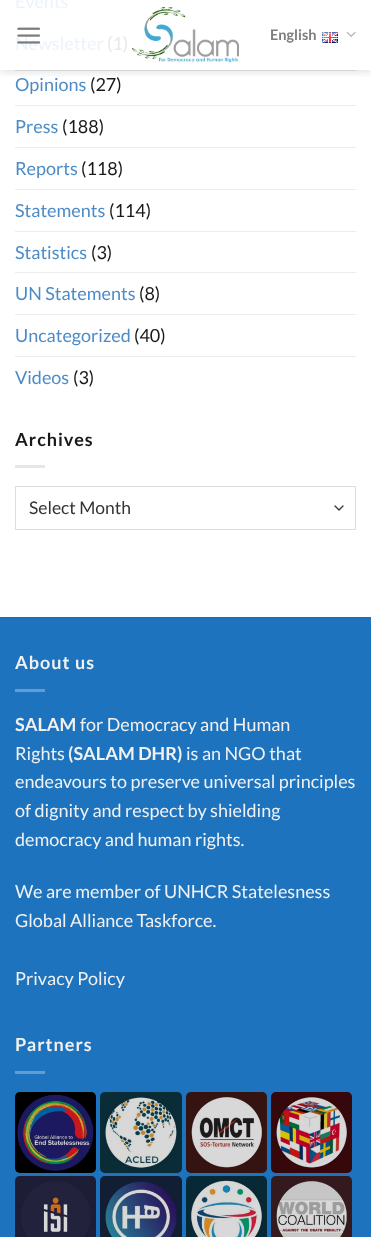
<!DOCTYPE html>
<meta charset="utf-8">
<style>body { margin: 0 } canvas { display: block }</style>
<canvas id="canvas" width="371" height="1237"></canvas>
<img id="img1" src="images/2.png" hidden>
<img id="img2" src="images/3.png" hidden>
<img id="img3" src="images/4.png" hidden>
<img id="img4" src="images/5.png" hidden>
<img id="img5" src="images/6.png" hidden>
<img id="img6" src="images/7.png" hidden>
<img id="img7" src="images/8.png" hidden>
<img id="img8" src="images/9.png" hidden>
<img id="img9" src="images/10.png" hidden>
<img id="img10" src="images/11.png" hidden>
<img id="img11" src="images/12.png" hidden>
<img id="img12" src="images/1.png" hidden>
<script>
window.onload = function () {
    const canvas = document.getElementById('canvas');
    const context = canvas.getContext('2d');
    context.miterLimit = 4;
    context.fontKerning = 'normal';

    context.fillStyle = 'rgb(255, 255, 255)';
    context.fillRect(0, 0, 371, 1237);
    context.fillStyle = 'rgb(236, 236, 236)';
    context.fillRect(15, 105, 341, 1);
    context.fillRect(15, 147, 341, 1);
    context.fillRect(15, 189, 341, 1);
    context.fillRect(15, 231, 341, 1);
    context.fillRect(15, 272, 341, 1);
    context.fillRect(15, 314, 341, 1);
    context.fillRect(15, 356, 341, 1);
    context.fillStyle = 'rgb(230, 230, 230)';
    context.fillRect(15, 465, 30, 3);
    context.beginPath();
    context.moveTo(335, 506);
    context.lineTo(339, 510);
    context.lineTo(343, 506);
    context.strokeStyle = 'rgb(51, 51, 51)';
    context.lineWidth = 1.3;
    context.lineCap = 'round';
    context.lineJoin = 'round';
    context.stroke();
    context.strokeStyle = 'rgb(221, 221, 221)';
    context.lineWidth = 1;
    context.lineJoin = 'miter';
    context.strokeRect(15.5, 486.5, 340, 43);
    context.save();
    context.beginPath();
    context.rect(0, 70, 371, 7);
    context.clip();
    context.fillStyle = 'rgba(0, 0, 0, 0.15)';
    context.filter = 'blur(5px)';
    context.beginPath();
    context.rect(1, 1, 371, 70);
    context.fill();
    context.filter = 'none';
    context.restore();
    context.drawImage(document.getElementById('img1'), 132, 7, 107, 56);
    context.drawImage(document.getElementById('img2'), 322, 32, 16, 11);
    context.drawImage(document.getElementById('img3'), 346, 31, 10, 6);
    context.fillStyle = 'rgb(213, 213, 213)';
    context.fillRect(15, 70, 341, 1);
    context.fillStyle = 'rgb(30, 115, 190)';
    context.fillRect(0, 618, 371, 619);
    context.fillStyle = 'rgb(29, 109, 181)';
    context.fillRect(0, 617, 371, 1);
    context.fillStyle = 'rgb(98, 157, 210)';
    context.fillRect(15, 689, 30, 3);
    context.fillRect(15, 1071, 30, 3);
    context.drawImage(document.getElementById('img4'), 15, 1092, 81, 81);
    context.fillStyle = 'rgba(0, 0, 0, 0.15)';
    context.beginPath();
    context.roundRect(15, 1092, 81, 81, 5);
    context.fill();
    context.drawImage(document.getElementById('img5'), 100, 1092, 82, 81);
    context.beginPath();
    context.roundRect(100, 1092, 82, 81, 5);
    context.fill();
    context.drawImage(document.getElementById('img6'), 186, 1092, 81, 81);
    context.beginPath();
    context.roundRect(186, 1092, 81, 81, 5);
    context.fill();
    context.drawImage(document.getElementById('img7'), 271, 1092, 81, 81);
    context.beginPath();
    context.roundRect(271, 1092, 81, 81, 5);
    context.fill();
    context.drawImage(document.getElementById('img8'), 15, 1176, 81, 61);
    context.beginPath();
    context.roundRect(15, 1176, 81, 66, 5);
    context.fill();
    context.drawImage(document.getElementById('img9'), 100, 1176, 82, 61);
    context.beginPath();
    context.roundRect(100, 1176, 82, 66, 5);
    context.fill();
    context.drawImage(document.getElementById('img10'), 186, 1176, 81, 61);
    context.beginPath();
    context.roundRect(186, 1176, 81, 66, 5);
    context.fill();
    context.drawImage(document.getElementById('img11'), 271, 1176, 81, 61);
    context.beginPath();
    context.roundRect(271, 1176, 81, 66, 5);
    context.fill();
    context.font = '18px Lato';
    context.fillStyle = 'rgb(237, 243, 249)';
    context.fillText('Events', 15, 8);
    context.fillText('Newsletter', 15, 50);
    context.fillStyle = 'rgb(232, 232, 232)';
    context.fillText('(1)', 107, 50);
    context.fillStyle = 'rgb(76, 139, 198)';
    context.fillText('Opinions', 15, 91);
    context.fillStyle = 'rgb(25, 25, 25)';
    context.fillText('(27)', 90, 91);
    context.fillStyle = 'rgb(76, 139, 198)';
    context.fillText('Press', 15, 133);
    context.fillStyle = 'rgb(25, 25, 25)';
    context.fillText('(188)', 62, 133);
    context.fillStyle = 'rgb(76, 139, 198)';
    context.fillText('Reports', 15, 175);
    context.fillStyle = 'rgb(25, 25, 25)';
    context.fillText('(118)', 81, 175);
    context.fillStyle = 'rgb(76, 139, 198)';
    context.fillText('Statements', 15, 217);
    context.fillStyle = 'rgb(25, 25, 25)';
    context.fillText('(114)', 109, 217);
    context.fillStyle = 'rgb(76, 139, 198)';
    context.fillText('Statistics', 15, 259);
    context.fillStyle = 'rgb(25, 25, 25)';
    context.fillText('(3)', 91, 259);
    context.fillStyle = 'rgb(76, 139, 198)';
    context.fillText('UN Statements', 15, 300);
    context.fillStyle = 'rgb(25, 25, 25)';
    context.fillText('(8)', 139, 300);
    context.fillStyle = 'rgb(76, 139, 198)';
    context.fillText('Uncategorized', 15, 342);
    context.fillStyle = 'rgb(25, 25, 25)';
    context.fillText('(40)', 134, 342);
    context.fillStyle = 'rgb(76, 139, 198)';
    context.fillText('Videos', 15, 384);
    context.fillStyle = 'rgb(25, 25, 25)';
    context.fillText('(3)', 73, 384);
    context.letterSpacing = '1px';
    context.font = 'bold 18px Lato';
    context.fillText('Archives', 15, 446);
    context.letterSpacing = '0px';
    context.font = '17.5px Lato';
    context.fillStyle = 'rgb(51, 51, 51)';
    context.fillText('Select Month', 29, 514);
    context.drawImage(document.getElementById('img12'), 17, 27, 24, 17);
    context.font = 'bold 14.5px Lato';
    context.fillStyle = 'rgb(125, 125, 125)';
    context.fillText('English', 270, 40);
    context.letterSpacing = '1px';
    context.font = 'bold 18px Lato';
    context.fillStyle = 'rgb(241, 241, 241)';
    context.fillText('About us', 15, 669);
    context.letterSpacing = '0px';
    context.fillText('SALAM', 15, 731);
    context.font = '18px Lato';
    context.fillText('for Democracy and Human', 80, 731);
    context.fillText('Rights', 15, 760);
    context.font = 'bold 18px Lato';
    context.fillText('(SALAM DHR)', 68, 760);
    context.font = '18px Lato';
    context.fillText('is an NGO that', 186, 760);
    context.fillText('endeavours to preserve universal principles', 15, 788);
    context.fillText('of dignity and respect by shielding', 15, 817);
    context.fillText('democracy and human rights.', 15, 846);
    context.fillText('We are member of UNHCR Statelesness', 15, 898);
    context.fillText('Global Alliance Taskforce.', 15, 927);
    context.fillText('Privacy Policy', 15, 985);
    context.letterSpacing = '1px';
    context.font = 'bold 18px Lato';
    context.fillText('Partners', 15, 1051);
};
</script>
